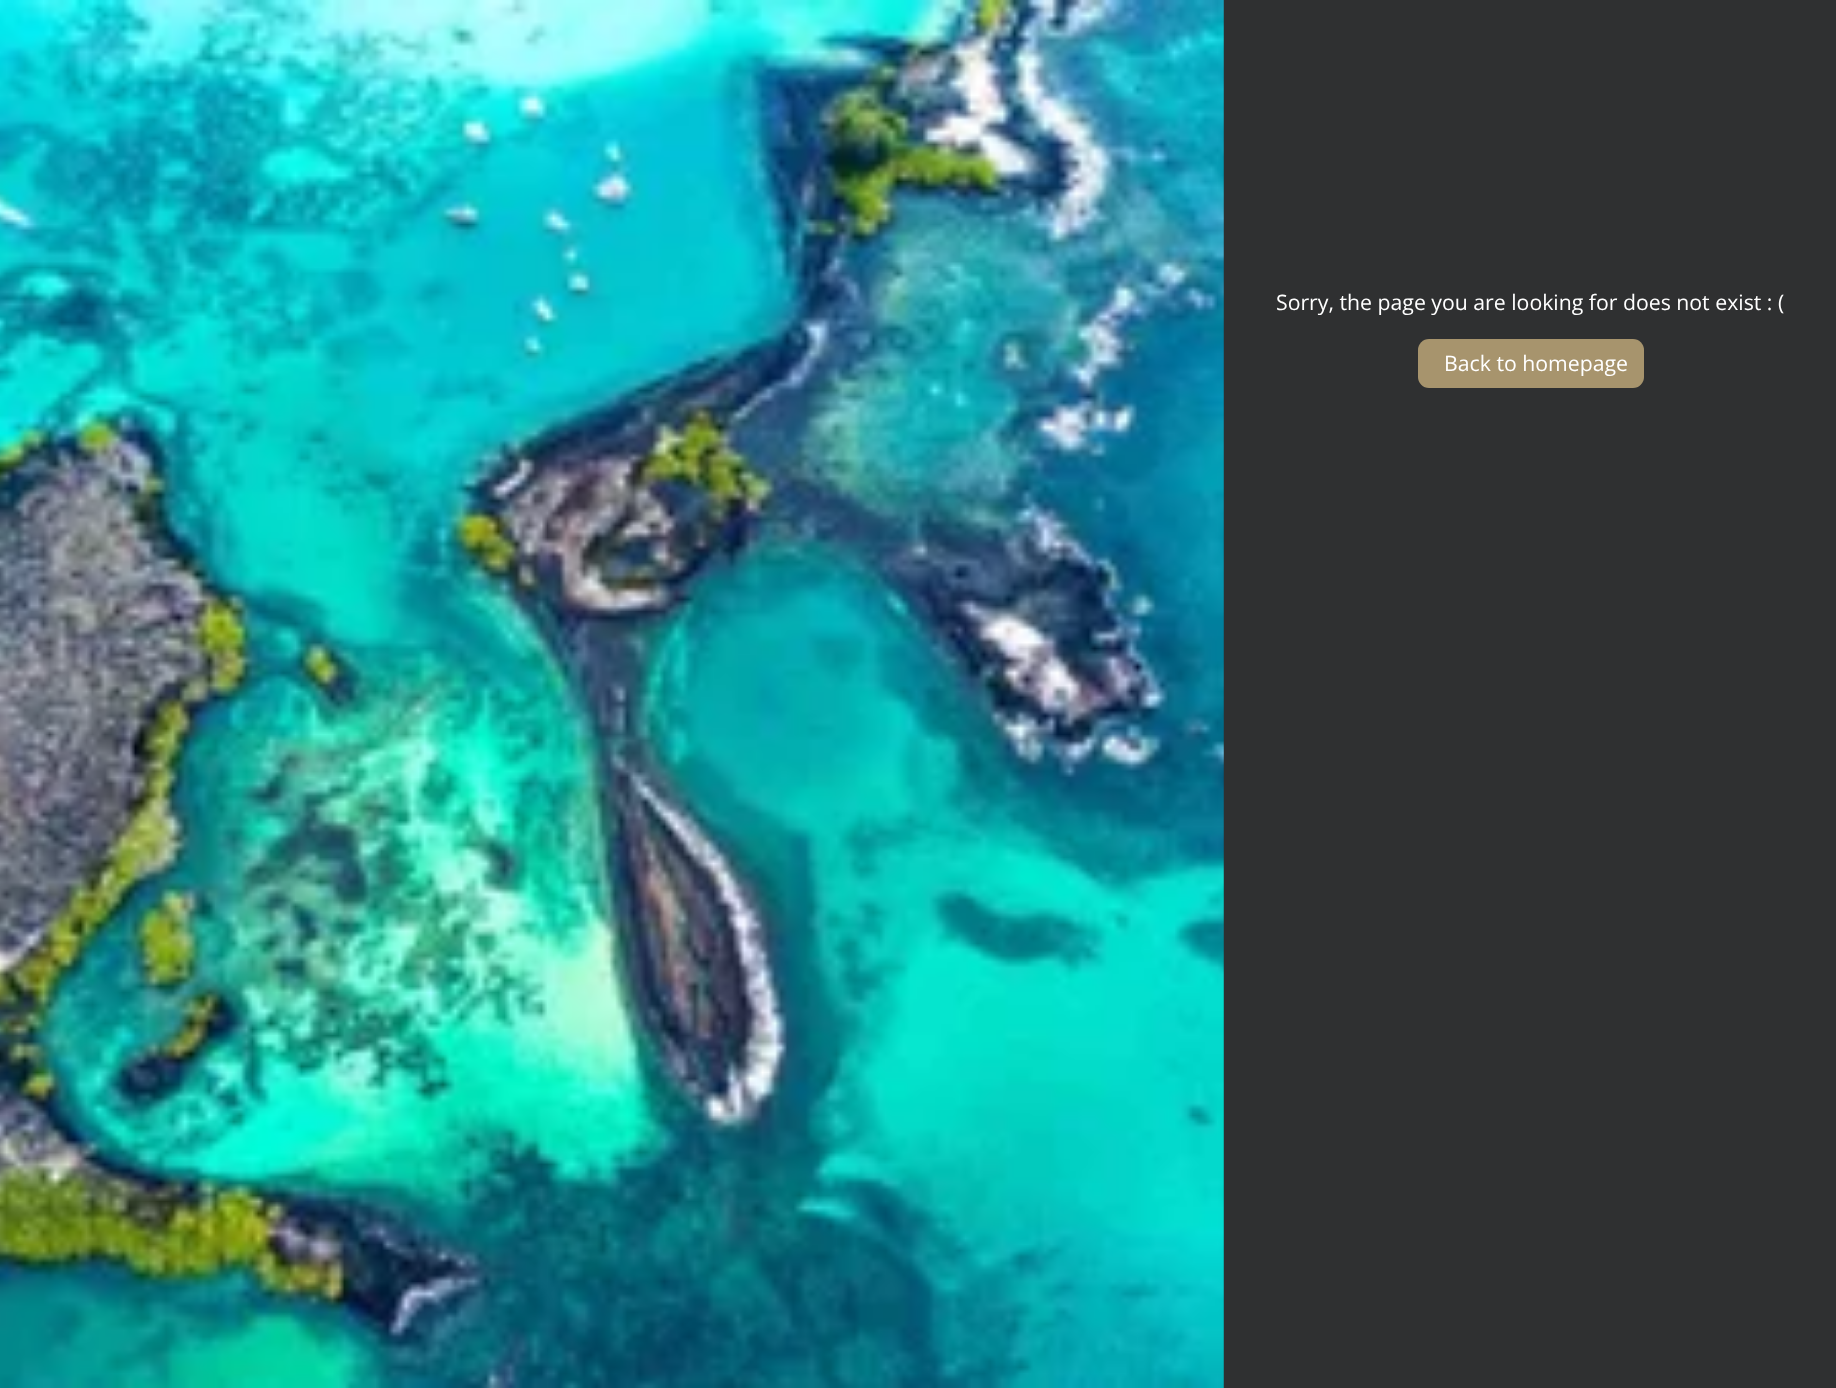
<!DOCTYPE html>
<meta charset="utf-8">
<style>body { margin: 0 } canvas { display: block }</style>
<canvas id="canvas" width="1836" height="1388"></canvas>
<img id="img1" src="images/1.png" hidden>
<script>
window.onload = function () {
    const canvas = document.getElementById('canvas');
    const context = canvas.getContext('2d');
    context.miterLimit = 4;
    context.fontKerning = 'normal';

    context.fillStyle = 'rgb(47, 48, 49)';
    context.fillRect(0, 0, 1836, 1388);
    context.drawImage(document.getElementById('img1'), 0, 0, 1224, 1388);
    context.fillStyle = 'rgb(167, 148, 109)';
    context.beginPath();
    context.roundRect(1418, 339, 226, 49, 11);
    context.fill();
    context.font = '21.25px Open Sans';
    context.fillStyle = 'rgb(255, 255, 255)';
    context.fillText('Sorry, the page you are looking for does not exist : (', 1276, 310);
    context.fillText('Back to homepage', 1444, 371);
};
</script>
